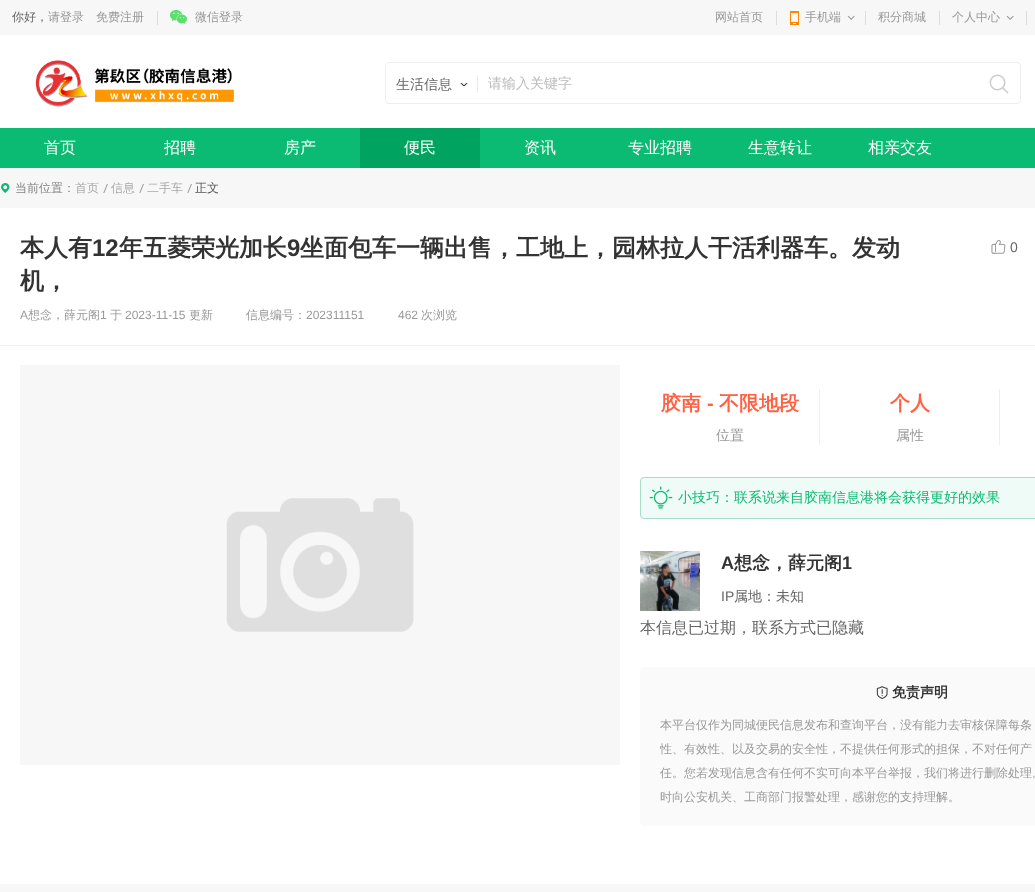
<!DOCTYPE html>
<meta charset="utf-8">
<style>body { margin: 0 } canvas { display: block }</style>
<canvas id="canvas" width="1035" height="892"></canvas>
<img id="img1" src="images/1.png" hidden>
<img id="img2" src="images/2.png" hidden>
<img id="img3" src="images/3.png" hidden>
<img id="img4" src="images/4.png" hidden>
<img id="img5" src="images/5.png" hidden>
<img id="img6" src="images/6.png" hidden>
<img id="img7" src="images/7.png" hidden>
<img id="img8" src="images/8.png" hidden>
<img id="img9" src="images/9.png" hidden>
<img id="img10" src="images/10.png" hidden>
<img id="img11" src="images/11.png" hidden>
<img id="img12" src="images/12.png" hidden>
<img id="img13" src="images/13.png" hidden>
<script>
window.onload = function () {
    const canvas = document.getElementById('canvas');
    const context = canvas.getContext('2d');
    context.miterLimit = 4;
    context.fontKerning = 'normal';

    context.fillStyle = 'rgb(247, 247, 247)';
    context.fillRect(0, 0, 1035, 892);
    context.fillStyle = 'rgb(221, 221, 221)';
    context.fillRect(157, 11, 1, 14);
    context.drawImage(document.getElementById('img1'), 170, 10, 17, 14);
    context.fillRect(776, 11, 1, 14);
    context.drawImage(document.getElementById('img2'), 790, 11, 9, 14);
    context.drawImage(document.getElementById('img3'), 847, 15, 8, 5);
    context.fillRect(865, 11, 1, 14);
    context.fillRect(939, 11, 1, 14);
    context.drawImage(document.getElementById('img3'), 1006, 15, 8, 5);
    context.fillRect(1026, 11, 1, 14);
    context.fillStyle = 'rgb(255, 255, 255)';
    context.fillRect(0, 35, 1035, 93);
    context.drawImage(document.getElementById('img4'), 35, 60, 199, 47);
    context.beginPath();
    context.roundRect(385.5, 62.5, 635, 41, 3.5);
    context.strokeStyle = 'rgb(238, 238, 238)';
    context.stroke();
    context.fillStyle = 'rgb(235, 235, 235)';
    context.fillRect(477, 75, 1, 18);
    context.drawImage(document.getElementById('img5'), 460, 83, 8, 3);
    context.drawImage(document.getElementById('img6'), 989, 74, 20, 20);
    context.fillStyle = 'rgb(11, 187, 115)';
    context.fillRect(0, 128, 1035, 40);
    context.fillStyle = 'rgb(0, 163, 96)';
    context.fillRect(360, 128, 120, 40);
    context.drawImage(document.getElementById('img7'), 1, 183, 9, 10);
    context.drawImage(document.getElementById('img8'), 103, 184, 5, 9);
    context.drawImage(document.getElementById('img8'), 139, 184, 5, 9);
    context.drawImage(document.getElementById('img8'), 187, 184, 5, 9);
    context.fillStyle = 'rgb(255, 255, 255)';
    context.fillRect(0, 208, 1035, 676);
    context.fillStyle = 'rgb(240, 240, 240)';
    context.fillRect(0, 345, 1035, 1);
    context.drawImage(document.getElementById('img9'), 991, 240, 15, 14);
    context.drawImage(document.getElementById('img10'), 20, 365, 600, 400);
    context.fillRect(819, 389, 1, 56);
    context.fillRect(999, 389, 1, 56);
    context.fillStyle = 'rgb(239, 251, 246)';
    context.beginPath();
    context.roundRect(640.5, 477.5, 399, 41, 3.5);
    context.fill();
    context.strokeStyle = 'rgb(170, 220, 200)';
    context.stroke();
    context.drawImage(document.getElementById('img11'), 649, 486, 24, 23);
    context.drawImage(document.getElementById('img12'), 640, 551, 60, 60);
    context.fillStyle = 'rgb(250, 250, 250)';
    context.beginPath();
    context.roundRect(640, 667, 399, 159, 4);
    context.fill();
    context.drawImage(document.getElementById('img13'), 876, 686, 12, 13);
    context.font = '500 12px WenQuanYi Zen Hei';
    context.fillStyle = 'rgb(102, 102, 102)';
    context.fillText('你好，', 12, 21);
    context.fillStyle = 'rgb(153, 153, 153)';
    context.fillText('请登录', 48, 21);
    context.fillText('免费注册', 96, 21);
    context.fillText('微信登录', 195, 21);
    context.fillText('网站首页', 715, 21);
    context.fillText('手机端', 805, 21);
    context.fillText('积分商城', 878, 21);
    context.fillText('个人中心', 952, 21);
    context.font = '500 14px WenQuanYi Zen Hei';
    context.fillStyle = 'rgb(102, 102, 102)';
    context.fillText('生活信息', 396, 89);
    context.fillStyle = 'rgb(187, 187, 187)';
    context.fillText('请输入关键字', 488, 88);
    context.font = '500 16px WenQuanYi Zen Hei';
    context.fillStyle = 'rgb(255, 255, 255)';
    context.fillText('首页', 44, 153);
    context.fillText('招聘', 164, 153);
    context.fillText('房产', 284, 153);
    context.fillText('便民', 404, 153);
    context.fillText('资讯', 524, 153);
    context.fillText('专业招聘', 628, 153);
    context.fillText('生意转让', 748, 153);
    context.fillText('相亲交友', 868, 153);
    context.font = '500 12px WenQuanYi Zen Hei';
    context.fillStyle = 'rgb(132, 132, 132)';
    context.fillText('当前位置：', 15, 192);
    context.fillStyle = 'rgb(170, 170, 170)';
    context.fillText('首页', 75, 192);
    context.fillText('信息', 111, 192);
    context.fillText('二手车', 147, 192);
    context.fillStyle = 'rgb(85, 85, 85)';
    context.fillText('正文', 195, 192);
    context.font = 'bold 24px WenQuanYi Zen Hei';
    context.fillStyle = 'rgb(51, 51, 51)';
    context.fillText('本人有', 20, 256);
    context.font = 'bold 24px Liberation Sans';
    context.fillText('12', 92, 256);
    context.font = 'bold 24px WenQuanYi Zen Hei';
    context.fillText('年五菱荣光加长', 119, 256);
    context.font = 'bold 24px Liberation Sans';
    context.fillText('9', 287, 256);
    context.font = 'bold 24px WenQuanYi Zen Hei';
    context.fillText('坐面包车一辆出售，工地上，园林拉人干活利器车。发动', 300, 256);
    context.fillText('机，', 20, 289);
    context.font = '12px Liberation Sans';
    context.fillStyle = 'rgb(153, 153, 153)';
    context.fillText('A', 20, 319);
    context.font = '500 12px WenQuanYi Zen Hei';
    context.fillText('想念，薛元阁', 28, 319);
    context.font = '12px Liberation Sans';
    context.fillText('1', 100, 319);
    context.font = '500 12px WenQuanYi Zen Hei';
    context.fillText('于', 110, 319);
    context.font = '12px Liberation Sans';
    context.fillText('2023-11-15', 125, 319);
    context.font = '500 12px WenQuanYi Zen Hei';
    context.fillText('更新', 189, 319);
    context.fillText('信息编号：', 246, 319);
    context.font = '12px Liberation Sans';
    context.fillText('202311151', 306, 319);
    context.fillText('462', 398, 319);
    context.font = '500 12px WenQuanYi Zen Hei';
    context.fillText('次浏览', 421, 319);
    context.font = '14px Liberation Sans';
    context.fillStyle = 'rgb(102, 102, 102)';
    context.fillText('0', 1010, 252);
    context.font = 'bold 20px WenQuanYi Zen Hei';
    context.fillStyle = 'rgb(255, 97, 66)';
    context.fillText('胶南', 661, 410);
    context.font = 'bold 20px Liberation Sans';
    context.fillText('-', 707, 410);
    context.font = 'bold 20px WenQuanYi Zen Hei';
    context.fillText('不限地段', 719, 410);
    context.font = '500 14px WenQuanYi Zen Hei';
    context.fillStyle = 'rgb(153, 153, 153)';
    context.fillText('位置', 716, 440);
    context.font = 'bold 20px WenQuanYi Zen Hei';
    context.fillStyle = 'rgb(255, 97, 66)';
    context.fillText('个人', 890, 410);
    context.font = '500 14px WenQuanYi Zen Hei';
    context.fillStyle = 'rgb(153, 153, 153)';
    context.fillText('属性', 896, 440);
    context.fillStyle = 'rgb(11, 187, 115)';
    context.fillText('小技巧：联系说来自胶南信息港将会获得更好的效果', 678, 502);
    context.font = 'bold 18px Liberation Sans';
    context.fillStyle = 'rgb(51, 51, 51)';
    context.fillText('A', 721, 569);
    context.font = 'bold 18px WenQuanYi Zen Hei';
    context.fillText('想念，薛元阁', 734, 569);
    context.font = 'bold 18px Liberation Sans';
    context.fillText('1', 842, 569);
    context.font = '14px Liberation Sans';
    context.fillStyle = 'rgb(102, 102, 102)';
    context.fillText('IP', 721, 601);
    context.font = '500 14px WenQuanYi Zen Hei';
    context.fillText('属地：未知', 734, 601);
    context.font = '500 16px WenQuanYi Zen Hei';
    context.fillText('本信息已过期，联系方式已隐藏', 640, 633);
    context.font = 'bold 14px WenQuanYi Zen Hei';
    context.fillStyle = 'rgb(51, 51, 51)';
    context.fillText('免责声明', 892, 697);
    context.font = '500 12px WenQuanYi Zen Hei';
    context.fillStyle = 'rgb(153, 153, 153)';
    context.fillText('本平台仅作为同城便民信息发布和查询平台，没有能力去审核保障每条', 660, 729);
    context.fillText('性、有效性、以及交易的安全性，不提供任何形式的担保，不对任何产', 660, 753);
    context.fillText('任。您若发现信息含有任何不实可向本平台举报，我们将进行删除处理。', 660, 777);
    context.fillText('时向公安机关、工商部门报警处理，感谢您的支持理解。', 660, 801);
};
</script>
